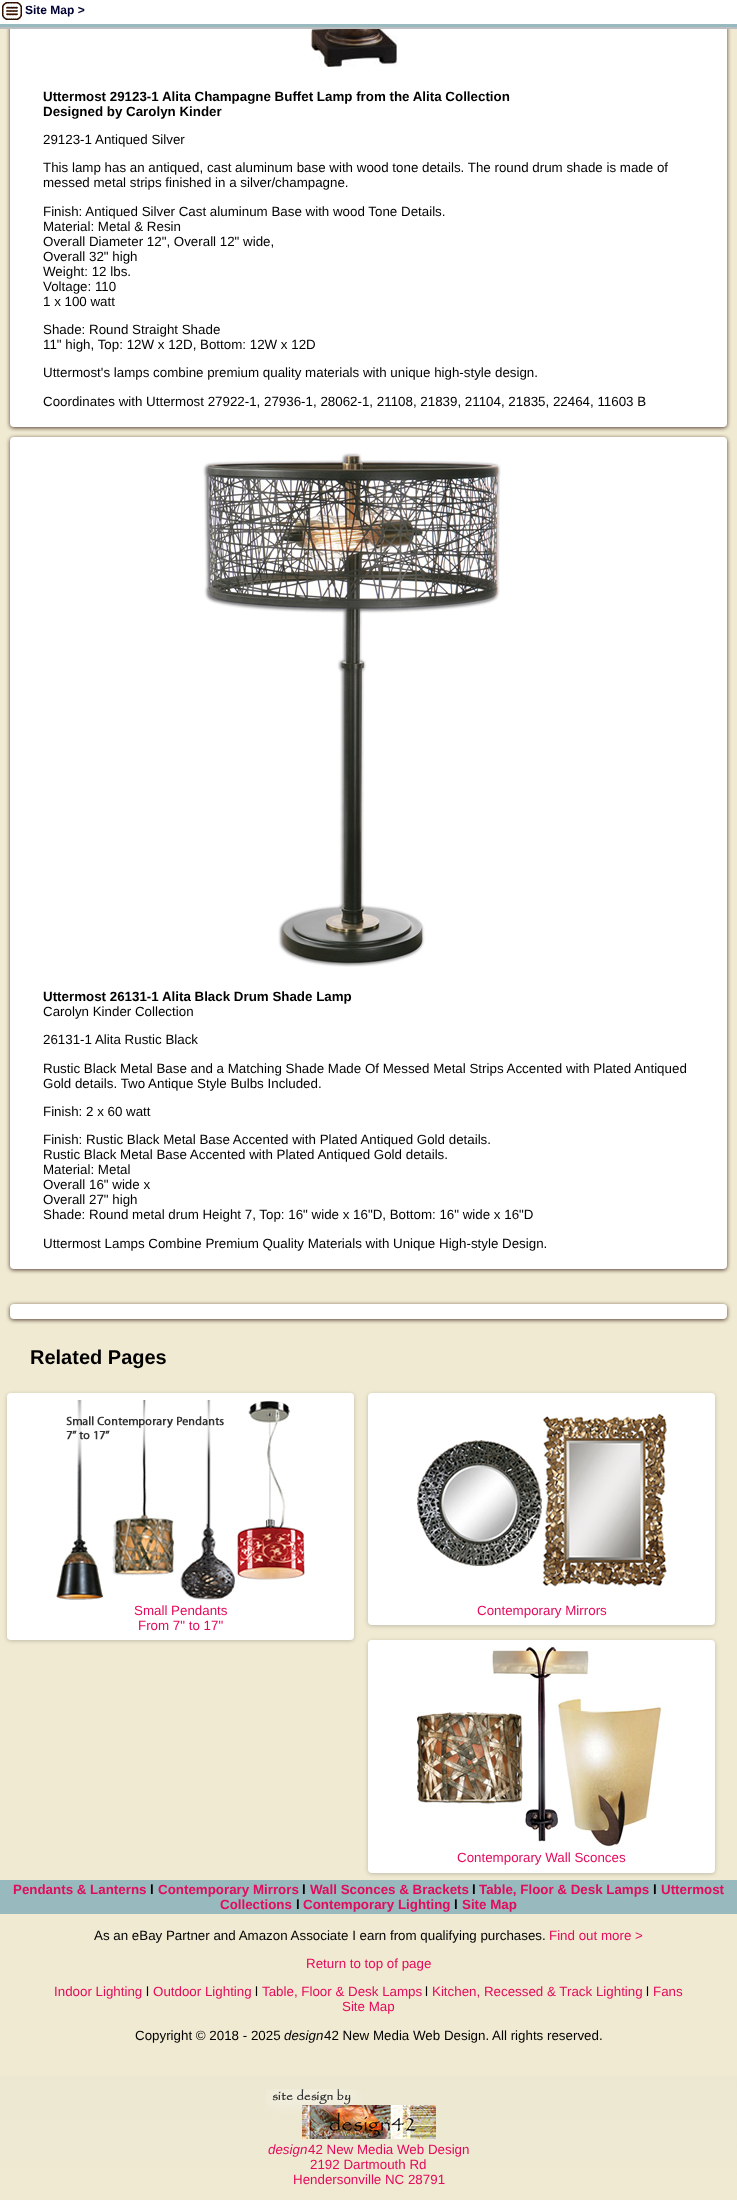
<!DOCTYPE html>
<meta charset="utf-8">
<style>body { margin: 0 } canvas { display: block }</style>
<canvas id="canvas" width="737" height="2200"></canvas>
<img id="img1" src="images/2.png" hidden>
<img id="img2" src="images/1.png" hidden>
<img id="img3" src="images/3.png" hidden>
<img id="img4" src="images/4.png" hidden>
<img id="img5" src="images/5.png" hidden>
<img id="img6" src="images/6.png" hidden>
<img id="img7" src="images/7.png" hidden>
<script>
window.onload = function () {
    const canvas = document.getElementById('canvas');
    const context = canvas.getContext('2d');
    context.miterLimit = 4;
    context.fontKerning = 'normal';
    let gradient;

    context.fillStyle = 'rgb(255, 255, 255)';
    context.fillRect(0, 0, 737, 2200);
    gradient = context.createLinearGradient(368, 0, 369, 2200);
    gradient.addColorStop(0, 'rgb(152, 185, 190)');
    gradient.addColorStop(1, 'rgb(240, 234, 210)');
    context.fillStyle = gradient;
    context.fillRect(0, 2076, 737, 124);
    context.fillStyle = 'rgb(240, 234, 210)';
    context.fillRect(0, 27, 737, 2049);
    context.fillStyle = 'rgb(83, 59, 49)';
    context.filter = 'blur(2px)';
    context.beginPath();
    context.roundRect(10, -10, 717, 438, 4);
    context.fill();
    context.filter = 'none';
    context.fillStyle = 'rgb(255, 255, 255)';
    context.beginPath();
    context.roundRect(10, -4, 717, 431, 4);
    context.fill();
    context.drawImage(document.getElementById('img1'), 310, 28, 88, 39);
    context.fillStyle = 'rgb(188, 189, 191)';
    context.filter = 'blur(0.5px)';
    context.beginPath();
    context.rect(0, 2, 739, 27);
    context.fill();
    context.filter = 'none';
    context.fillStyle = 'rgb(255, 255, 255)';
    context.fillRect(0, 0, 737, 24);
    context.fillStyle = 'rgb(152, 185, 190)';
    context.fillRect(0, 24, 737, 3);
    context.drawImage(document.getElementById('img2'), 2, 2, 20, 18);
    context.fillStyle = 'rgb(83, 59, 49)';
    context.filter = 'blur(2px)';
    context.beginPath();
    context.roundRect(10, 438, 717, 832, 4);
    context.fill();
    context.filter = 'none';
    context.fillStyle = 'rgb(255, 255, 255)';
    context.beginPath();
    context.roundRect(10, 437, 717, 832, 4);
    context.fill();
    context.drawImage(document.getElementById('img3'), 202, 452, 299, 515);
    context.fillStyle = 'rgb(83, 59, 49)';
    context.filter = 'blur(2px)';
    context.beginPath();
    context.roundRect(10, 1305, 717, 15, 4);
    context.fill();
    context.filter = 'none';
    context.fillStyle = 'rgb(255, 255, 255)';
    context.beginPath();
    context.roundRect(10, 1304, 717, 15, 4);
    context.fill();
    context.fillStyle = 'rgba(0, 0, 0, 0.2)';
    context.filter = 'blur(2px)';
    context.beginPath();
    context.roundRect(7, 1394, 347, 247, 4);
    context.fill();
    context.filter = 'none';
    context.fillStyle = 'rgb(255, 255, 255)';
    context.beginPath();
    context.roundRect(7, 1393, 347, 247, 4);
    context.fill();
    context.drawImage(document.getElementById('img4'), 56, 1400, 249, 200);
    context.fillStyle = 'rgba(0, 0, 0, 0.2)';
    context.filter = 'blur(2px)';
    context.beginPath();
    context.roundRect(368, 1394, 347, 232, 4);
    context.fill();
    context.filter = 'none';
    context.fillStyle = 'rgb(255, 255, 255)';
    context.beginPath();
    context.roundRect(368, 1393, 347, 232, 4);
    context.fill();
    context.drawImage(document.getElementById('img5'), 417, 1414, 250, 173);
    context.fillStyle = 'rgb(152, 185, 190)';
    context.fillRect(0, 1880, 737, 34);
    context.fillStyle = 'rgba(0, 0, 0, 0.2)';
    context.filter = 'blur(2px)';
    context.beginPath();
    context.roundRect(368, 1641, 347, 233, 4);
    context.fill();
    context.filter = 'none';
    context.fillStyle = 'rgb(255, 255, 255)';
    context.beginPath();
    context.roundRect(368, 1640, 347, 233, 4);
    context.fill();
    context.drawImage(document.getElementById('img6'), 417, 1647, 250, 200);
    context.drawImage(document.getElementById('img7'), 265, 2089, 171, 50);
    context.font = 'bold 12px Liberation Sans';
    context.fillStyle = 'rgb(0, 0, 51)';
    context.fillText('Site Map >', 25, 14);
    context.font = 'bold 13.35px Liberation Sans';
    context.fillStyle = 'rgb(0, 0, 0)';
    context.fillText('Uttermost 29123-1 Alita Champagne Buffet Lamp from the Alita Collection', 43, 101);
    context.fillText('Designed by Carolyn Kinder', 43, 116);
    context.font = '13.35px Liberation Sans';
    context.fillText('29123-1', 43, 144);
    context.fillText('Antiqued Silver', 95, 144);
    context.fillText('This lamp has an antiqued, cast aluminum base with wood tone details. The round drum shade is made of', 43, 172);
    context.fillText('messed metal strips finished in a silver/champagne.', 43, 187);
    context.fillText('Finish: Antiqued Silver Cast aluminum Base with wood Tone Details.', 43, 216);
    context.fillText('Material: Metal & Resin', 43, 231);
    context.fillText('Overall Diameter 12", Overall 12" wide,', 43, 246);
    context.fillText('Overall 32" high', 43, 261);
    context.fillText('Weight: 12 lbs.', 43, 276);
    context.fillText('Voltage: 110', 43, 291);
    context.fillText('1 x 100 watt', 43, 306);
    context.fillText('Shade: Round Straight Shade', 43, 334);
    context.fillText('11" high, Top: 12W x 12D, Bottom: 12W x 12D', 43, 349);
    context.fillText('Uttermost\'s lamps combine premium quality materials with unique high-style design.', 43, 377);
    context.fillText('Coordinates with Uttermost 27922-1, 27936-1, 28062-1, 21108, 21839, 21104, 21835, 22464, 11603 B', 43, 406);
    context.font = 'bold 13.35px Liberation Sans';
    context.fillText('Uttermost 26131-1 Alita Black Drum Shade Lamp', 43, 1001);
    context.font = '13.35px Liberation Sans';
    context.fillText('Carolyn Kinder Collection', 43, 1016);
    context.fillText('26131-1 Alita Rustic Black', 43, 1044);
    context.fillText('Rustic Black Metal Base and a Matching Shade Made Of Messed Metal Strips Accented with Plated Antiqued', 43, 1073);
    context.fillText('Gold details. Two Antique Style Bulbs Included.', 43, 1088);
    context.fillText('Finish: 2 x 60 watt', 43, 1116);
    context.fillText('Finish: Rustic Black Metal Base Accented with Plated Antiqued Gold details.', 43, 1144);
    context.fillText('Rustic Black Metal Base Accented with Plated Antiqued Gold details.', 43, 1159);
    context.fillText('Material: Metal', 43, 1174);
    context.fillText('Overall 16" wide x', 43, 1189);
    context.fillText('Overall 27" high', 43, 1204);
    context.fillText('Shade: Round metal drum Height 7, Top: 16" wide x 16"D, Bottom: 16" wide x 16"D', 43, 1219);
    context.fillText('Uttermost Lamps Combine Premium Quality Materials with Unique High-style Design.', 43, 1248);
    context.font = 'bold 20px Liberation Sans';
    context.fillText('Related Pages', 30, 1364);
    context.font = '13.35px Liberation Sans';
    context.fillStyle = 'rgb(227, 11, 92)';
    context.fillText('Small Pendants', 134, 1615);
    context.fillText('From 7" to 17"', 138, 1630);
    context.fillText('Contemporary Mirrors', 477, 1615);
    context.fillText('Contemporary Wall Sconces', 457, 1862);
    context.font = 'bold 13.35px Liberation Sans';
    context.fillText('Pendants & Lanterns', 13, 1894);
    context.fillStyle = 'rgb(0, 0, 0)';
    context.fillText('l', 150, 1894);
    context.fillStyle = 'rgb(227, 11, 92)';
    context.fillText('Contemporary Mirrors', 158, 1894);
    context.fillStyle = 'rgb(0, 0, 0)';
    context.fillText('l', 302, 1894);
    context.fillStyle = 'rgb(227, 11, 92)';
    context.fillText('Wall Sconces & Brackets', 310, 1894);
    context.fillStyle = 'rgb(0, 0, 0)';
    context.fillText('l', 472, 1894);
    context.fillStyle = 'rgb(227, 11, 92)';
    context.fillText('Table, Floor & Desk Lamps', 479, 1894);
    context.fillStyle = 'rgb(0, 0, 0)';
    context.fillText('l', 653, 1894);
    context.fillStyle = 'rgb(227, 11, 92)';
    context.fillText('Uttermost', 661, 1894);
    context.fillText('Collections', 220, 1909);
    context.fillStyle = 'rgb(0, 0, 0)';
    context.fillText('l', 296, 1909);
    context.fillStyle = 'rgb(227, 11, 92)';
    context.fillText('Contemporary Lighting', 303, 1909);
    context.fillStyle = 'rgb(0, 0, 0)';
    context.fillText('l', 454, 1909);
    context.fillStyle = 'rgb(227, 11, 92)';
    context.fillText('Site Map', 462, 1909);
    context.font = '13.35px Liberation Sans';
    context.fillStyle = 'rgb(0, 0, 0)';
    context.fillText('As an eBay Partner and Amazon Associate I earn from qualifying purchases.', 94, 1940);
    context.fillStyle = 'rgb(227, 11, 92)';
    context.fillText('Find out more >', 549, 1940);
    context.fillText('Return to top of page', 306, 1968);
    context.fillText('Indoor Lighting', 54, 1996);
    context.fillStyle = 'rgb(0, 0, 0)';
    context.fillText('l', 146, 1996);
    context.fillStyle = 'rgb(227, 11, 92)';
    context.fillText('Outdoor Lighting', 153, 1996);
    context.fillStyle = 'rgb(0, 0, 0)';
    context.fillText('l', 255, 1996);
    context.fillStyle = 'rgb(227, 11, 92)';
    context.fillText('Table, Floor & Desk Lamps', 262, 1996);
    context.fillStyle = 'rgb(0, 0, 0)';
    context.fillText('l', 425, 1996);
    context.fillStyle = 'rgb(227, 11, 92)';
    context.fillText('Kitchen, Recessed & Track Lighting', 432, 1996);
    context.fillStyle = 'rgb(0, 0, 0)';
    context.fillText('l', 646, 1996);
    context.fillStyle = 'rgb(227, 11, 92)';
    context.fillText('Fans', 653, 1996);
    context.fillText('Site Map', 342, 2011);
    context.fillStyle = 'rgb(0, 0, 0)';
    context.fillText('Copyright © 2018 - 2025', 135, 2040);
    context.font = 'italic 13.35px Liberation Sans';
    context.fillText('design', 284, 2040);
    context.font = '13.35px Liberation Sans';
    context.fillText('42 New Media Web Design. All rights reserved.', 324, 2040);
    context.font = 'italic 13.35px Liberation Sans';
    context.fillStyle = 'rgb(227, 11, 92)';
    context.fillText('design', 268, 2154);
    context.font = '13.35px Liberation Sans';
    context.fillText('42 New Media Web Design', 308, 2154);
    context.fillText('2192 Dartmouth Rd', 310, 2169);
    context.fillText('Hendersonville NC 28791', 293, 2184);
};
</script>
